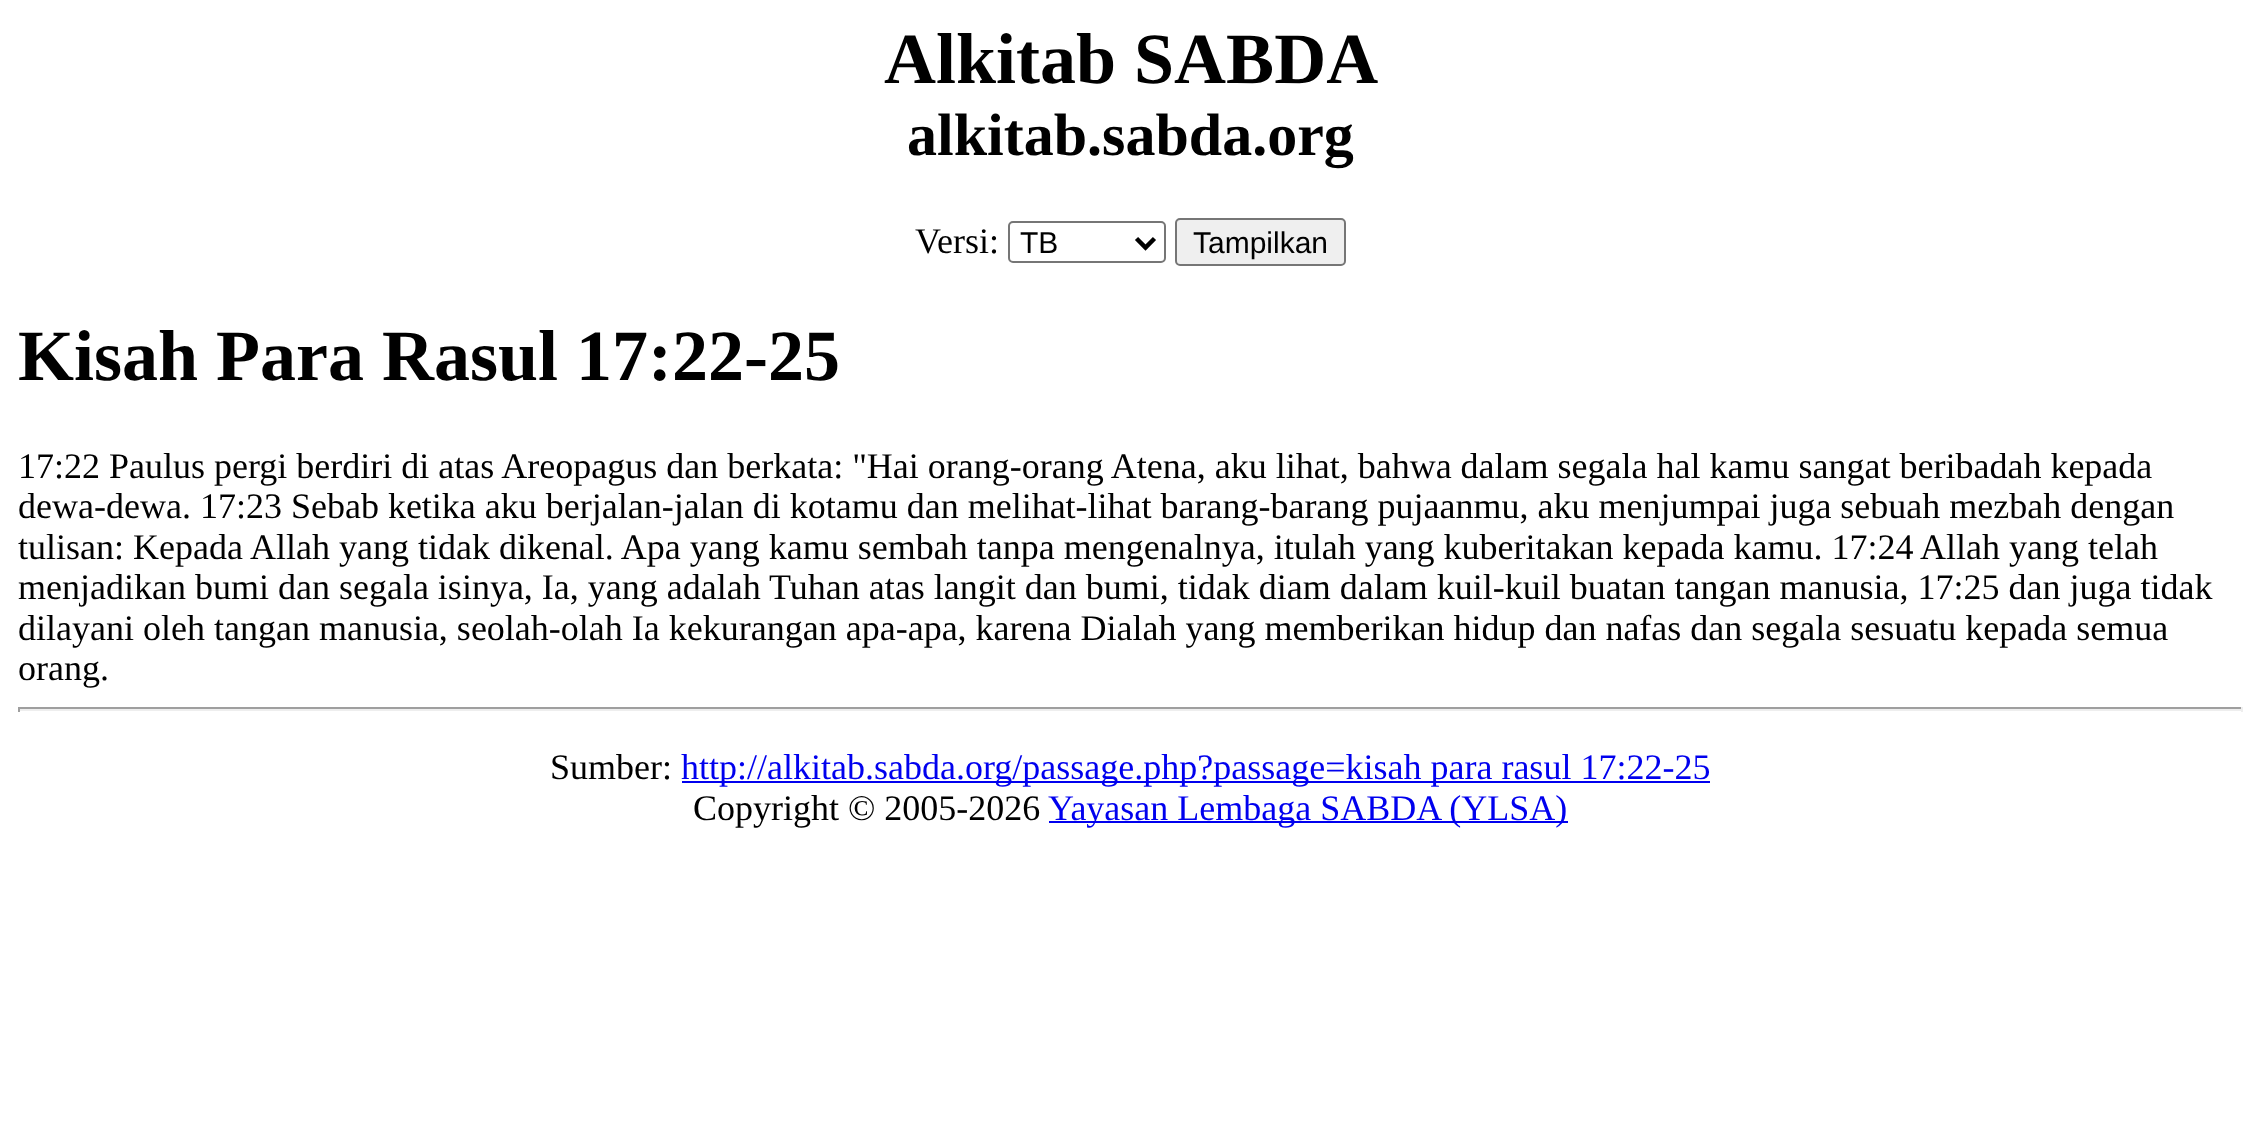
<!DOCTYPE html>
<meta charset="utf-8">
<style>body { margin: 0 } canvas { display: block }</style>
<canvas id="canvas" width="2261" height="1146"></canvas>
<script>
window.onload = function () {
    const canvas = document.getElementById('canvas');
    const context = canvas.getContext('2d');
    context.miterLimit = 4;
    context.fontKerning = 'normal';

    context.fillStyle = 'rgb(255, 255, 255)';
    context.fillRect(0, 0, 2261, 1146);
    context.beginPath();
    context.roundRect(1009, 222, 156, 40, 4);
    context.strokeStyle = 'rgb(118, 118, 118)';
    context.lineWidth = 2;
    context.stroke();
    context.beginPath();
    context.moveTo(1136.5, 238.5);
    context.lineTo(1145.5, 247.5);
    context.lineTo(1154.5, 238.5);
    context.strokeStyle = 'rgb(0, 0, 0)';
    context.lineWidth = 4.5;
    context.stroke();
    context.fillStyle = 'rgb(239, 239, 239)';
    context.beginPath();
    context.roundRect(1176, 219, 169, 46, 4);
    context.fill();
    context.strokeStyle = 'rgb(118, 118, 118)';
    context.lineWidth = 2;
    context.stroke();
    context.fillStyle = 'rgb(159, 159, 159)';
    context.fillRect(18, 707, 2225, 2);
    context.fillStyle = 'rgb(238, 238, 238)';
    context.fillRect(2241, 707, 2, 5);
    context.fillRect(18, 709, 2225, 2);
    context.fillStyle = 'rgb(159, 159, 159)';
    context.fillRect(18, 707, 2, 5);
    context.fillStyle = 'rgb(0, 0, 238)';
    context.fillRect(682, 781, 1028, 2);
    context.fillRect(1049, 821, 519, 2);
    context.font = 'bold 72px Liberation Serif';
    context.fillStyle = 'rgb(0, 0, 0)';
    context.fillText('Alkitab SABDA', 884, 83);
    context.font = 'bold 60px Liberation Serif';
    context.fillText('alkitab.sabda.org', 907, 155);
    context.font = '36px Liberation Serif';
    context.fillText('Versi:', 915, 253);
    context.font = '30px Liberation Sans';
    context.fillText('TB', 1020, 253);
    context.fillText('Tampilkan', 1193, 253);
    context.font = 'bold 72px Liberation Serif';
    context.fillText('Kisah Para Rasul 17:22-25', 18, 380);
    context.font = '36px Liberation Serif';
    context.fillText('17:22 Paulus pergi berdiri di atas Areopagus dan berkata: "Hai orang-orang Atena, aku lihat, bahwa dalam segala hal kamu sangat beribadah kepada', 18, 478);
    context.fillText('dewa-dewa. 17:23 Sebab ketika aku berjalan-jalan di kotamu dan melihat-lihat barang-barang pujaanmu, aku menjumpai juga sebuah mezbah dengan', 18, 518);
    context.fillText('tulisan: Kepada Allah yang tidak dikenal. Apa yang kamu sembah tanpa mengenalnya, itulah yang kuberitakan kepada kamu. 17:24', 18, 559);
    context.fillText('Allah yang telah', 1920, 559);
    context.fillText('menjadikan bumi dan segala isinya, Ia, yang adalah Tuhan atas langit dan bumi, tidak diam dalam kuil-kuil buatan tangan manusia, 17:25 dan juga tidak', 18, 599);
    context.fillText('dilayani oleh tangan manusia, seolah-olah Ia kekurangan apa-apa, karena Dialah yang memberikan hidup dan nafas dan segala sesuatu kepada semua', 18, 640);
    context.fillText('orang.', 18, 680);
    context.fillText('Sumber:', 550, 779);
    context.fillStyle = 'rgb(0, 0, 238)';
    context.fillText('http://alkitab.sabda.org/passage.php?passage=kisah para rasul 17:22-25', 681, 779);
    context.fillStyle = 'rgb(0, 0, 0)';
    context.fillText('Copyright © 2005-2026', 693, 820);
    context.fillStyle = 'rgb(0, 0, 238)';
    context.fillText('Yayasan Lembaga SABDA (YLSA)', 1048, 820);
};
</script>
